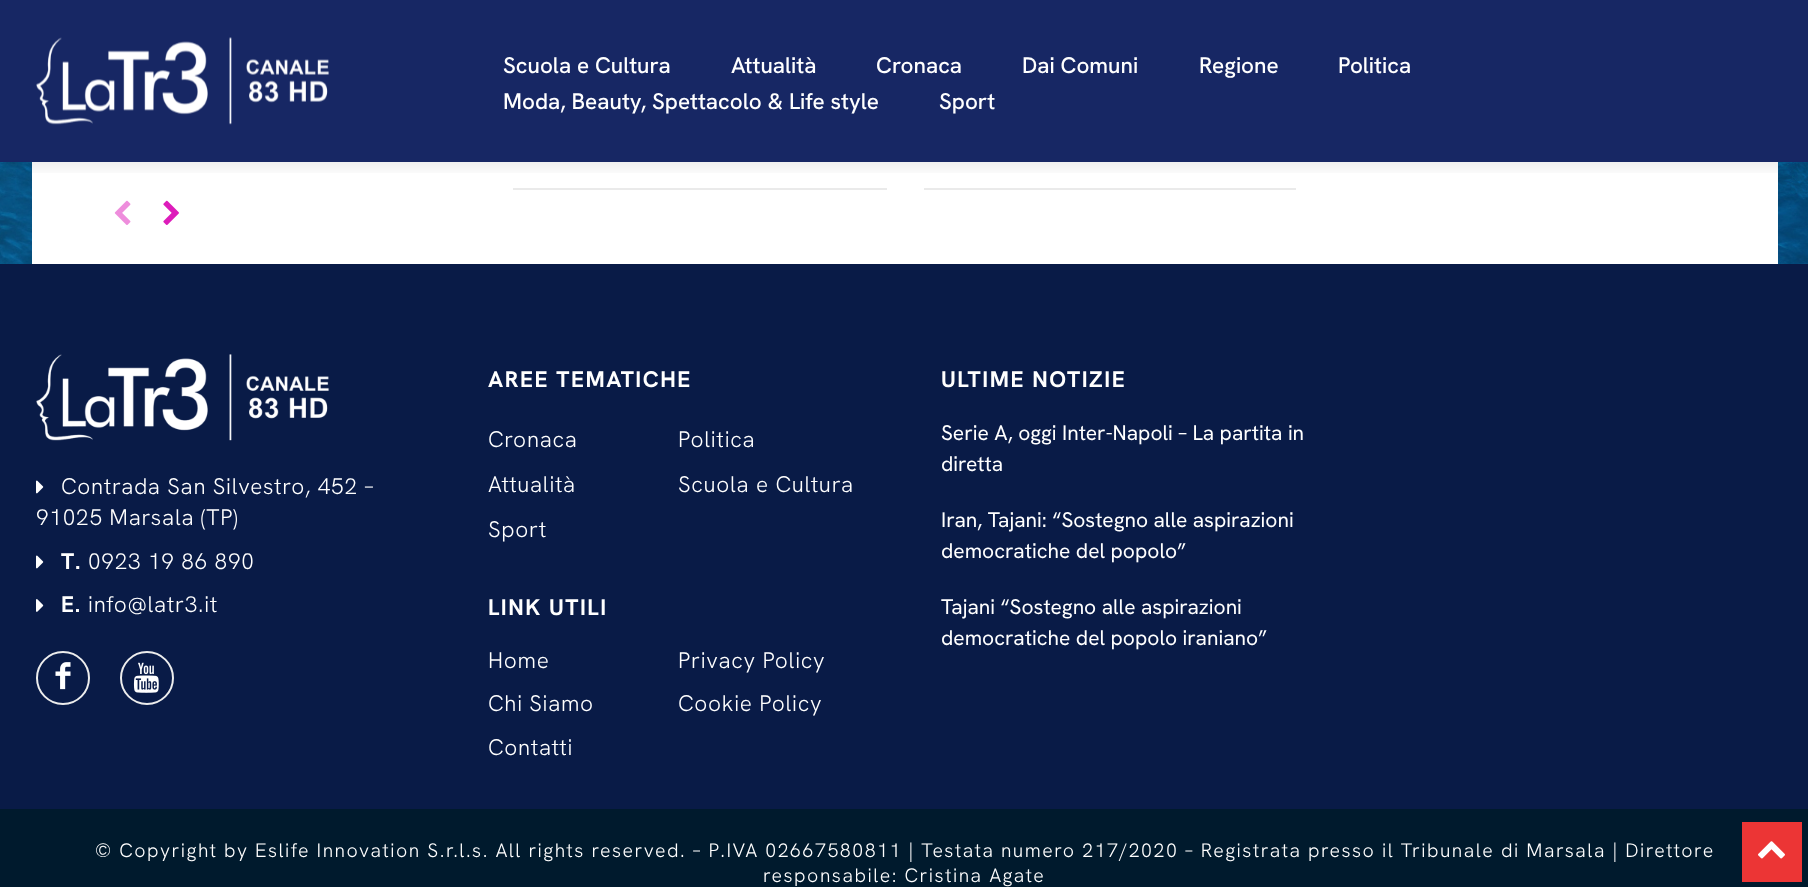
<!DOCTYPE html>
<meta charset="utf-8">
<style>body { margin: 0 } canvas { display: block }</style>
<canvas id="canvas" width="1808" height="887"></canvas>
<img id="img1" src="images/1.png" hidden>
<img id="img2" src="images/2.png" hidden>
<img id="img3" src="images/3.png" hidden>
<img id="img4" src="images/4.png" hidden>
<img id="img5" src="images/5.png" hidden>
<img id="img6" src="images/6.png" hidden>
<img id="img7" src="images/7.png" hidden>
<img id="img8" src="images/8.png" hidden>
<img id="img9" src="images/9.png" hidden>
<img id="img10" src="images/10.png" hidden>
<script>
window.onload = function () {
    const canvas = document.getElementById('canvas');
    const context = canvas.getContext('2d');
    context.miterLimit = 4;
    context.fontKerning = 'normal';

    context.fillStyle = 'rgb(255, 255, 255)';
    context.fillRect(0, 0, 1808, 887);
    context.drawImage(document.getElementById('img1'), 0, 162, 1808, 102);
    context.fillStyle = 'rgb(23, 39, 100)';
    context.fillRect(0, 0, 1808, 162);
    context.drawImage(document.getElementById('img2'), 36, 37, 294, 88);
    context.fillStyle = 'rgb(255, 255, 255)';
    context.fillRect(32, 162, 1746, 102);
    context.fillStyle = 'rgb(234, 234, 234)';
    context.fillRect(513, 188, 374, 2);
    context.fillRect(924, 188, 372, 2);
    context.save();
    context.beginPath();
    context.rect(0, 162, 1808, 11);
    context.clip();
    context.fillStyle = 'rgba(0, 0, 0, 0.12)';
    context.filter = 'blur(11px)';
    context.beginPath();
    context.rect(0, 0, 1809, 162);
    context.fill();
    context.filter = 'none';
    context.restore();
    context.drawImage(document.getElementById('img3'), 114, 200, 17, 25);
    context.drawImage(document.getElementById('img4'), 163, 200, 16, 25);
    context.fillStyle = 'rgb(9, 27, 71)';
    context.fillRect(0, 264, 1808, 545);
    context.drawImage(document.getElementById('img5'), 36, 354, 294, 87);
    context.drawImage(document.getElementById('img6'), 36, 480, 8, 14);
    context.drawImage(document.getElementById('img6'), 36, 555, 8, 14);
    context.drawImage(document.getElementById('img7'), 36, 599, 8, 13);
    context.beginPath();
    context.arc(63, 678, 26, 0, 2 * Math.PI);
    context.strokeStyle = 'rgb(237, 237, 237)';
    context.lineWidth = 2;
    context.stroke();
    context.drawImage(document.getElementById('img8'), 55, 662, 16, 28);
    context.beginPath();
    context.arc(147, 678, 26, 0, 2 * Math.PI);
    context.stroke();
    context.drawImage(document.getElementById('img9'), 133, 662, 26, 31);
    context.fillStyle = 'rgb(0, 26, 45)';
    context.fillRect(0, 809, 1808, 78);
    context.fillStyle = 'rgb(236, 53, 53)';
    context.fillRect(1742, 822, 60, 60);
    context.drawImage(document.getElementById('img10'), 1758, 841, 27, 18);
    context.font = '500 22.5px Hanken Grotesk';
    context.fillStyle = 'rgb(255, 255, 255)';
    context.fillText('Scuola e Cultura', 503, 73);
    context.fillText('Attualità', 731, 73);
    context.fillText('Cronaca', 876, 73);
    context.fillText('Dai Comuni', 1022, 73);
    context.fillText('Regione', 1199, 73);
    context.fillText('Politica', 1338, 73);
    context.fillText('Moda, Beauty, Spettacolo & Life style', 503, 109);
    context.fillText('Sport', 939, 109);
    context.letterSpacing = '0.75px';
    context.font = '300 22.5px Hanken Grotesk';
    context.fillText('Contrada San Silvestro, 452 –', 61, 494);
    context.fillText('91025 Marsala (TP)', 36, 525);
    context.font = 'bold 22.5px Hanken Grotesk';
    context.fillText('T.', 61, 569);
    context.font = '300 22.5px Hanken Grotesk';
    context.fillText('0923 19 86 890', 88, 569);
    context.font = 'bold 22.5px Hanken Grotesk';
    context.fillText('E.', 61, 612);
    context.font = '300 22.5px Hanken Grotesk';
    context.fillText('info@latr3.it', 88, 612);
    context.letterSpacing = '1.5px';
    context.font = 'bold 22.5px Hanken Grotesk';
    context.fillText('AREE TEMATICHE', 488, 387);
    context.letterSpacing = '0.75px';
    context.font = '300 22.5px Hanken Grotesk';
    context.fillText('Cronaca', 488, 447);
    context.fillText('Attualità', 488, 492);
    context.fillText('Sport', 488, 537);
    context.fillText('Politica', 678, 447);
    context.fillText('Scuola e Cultura', 678, 492);
    context.letterSpacing = '1.5px';
    context.font = 'bold 22.5px Hanken Grotesk';
    context.fillText('LINK UTILI', 488, 615);
    context.letterSpacing = '0.75px';
    context.font = '300 22.5px Hanken Grotesk';
    context.fillText('Home', 488, 668);
    context.fillText('Chi Siamo', 488, 711);
    context.fillText('Contatti', 488, 755);
    context.fillText('Privacy Policy', 678, 668);
    context.fillText('Cookie Policy', 678, 711);
    context.letterSpacing = '1.5px';
    context.font = 'bold 22.5px Hanken Grotesk';
    context.fillText('ULTIME NOTIZIE', 941, 387);
    context.letterSpacing = '0px';
    context.font = '21px Hanken Grotesk';
    context.fillText('Serie A, oggi Inter-Napoli – La partita in', 941, 440);
    context.fillText('diretta', 941, 471);
    context.fillText('Iran, Tajani: “Sostegno alle aspirazioni', 941, 527);
    context.fillText('democratiche del popolo”', 941, 558);
    context.fillText('Tajani “Sostegno alle aspirazioni', 941, 614);
    context.fillText('democratiche del popolo iraniano”', 941, 645);
    context.letterSpacing = '1.5px';
    context.font = '300 19.5px Hanken Grotesk';
    context.fillText('© Copyright by Eslife Innovation S.r.l.s. All rights reserved. – P.IVA 02667580811 | Testata numero 217/2020 – Registrata presso il Tribunale di Marsala | Direttore', 95, 857);
    context.fillText('responsabile: Cristina Agate', 763, 882);
};
</script>
